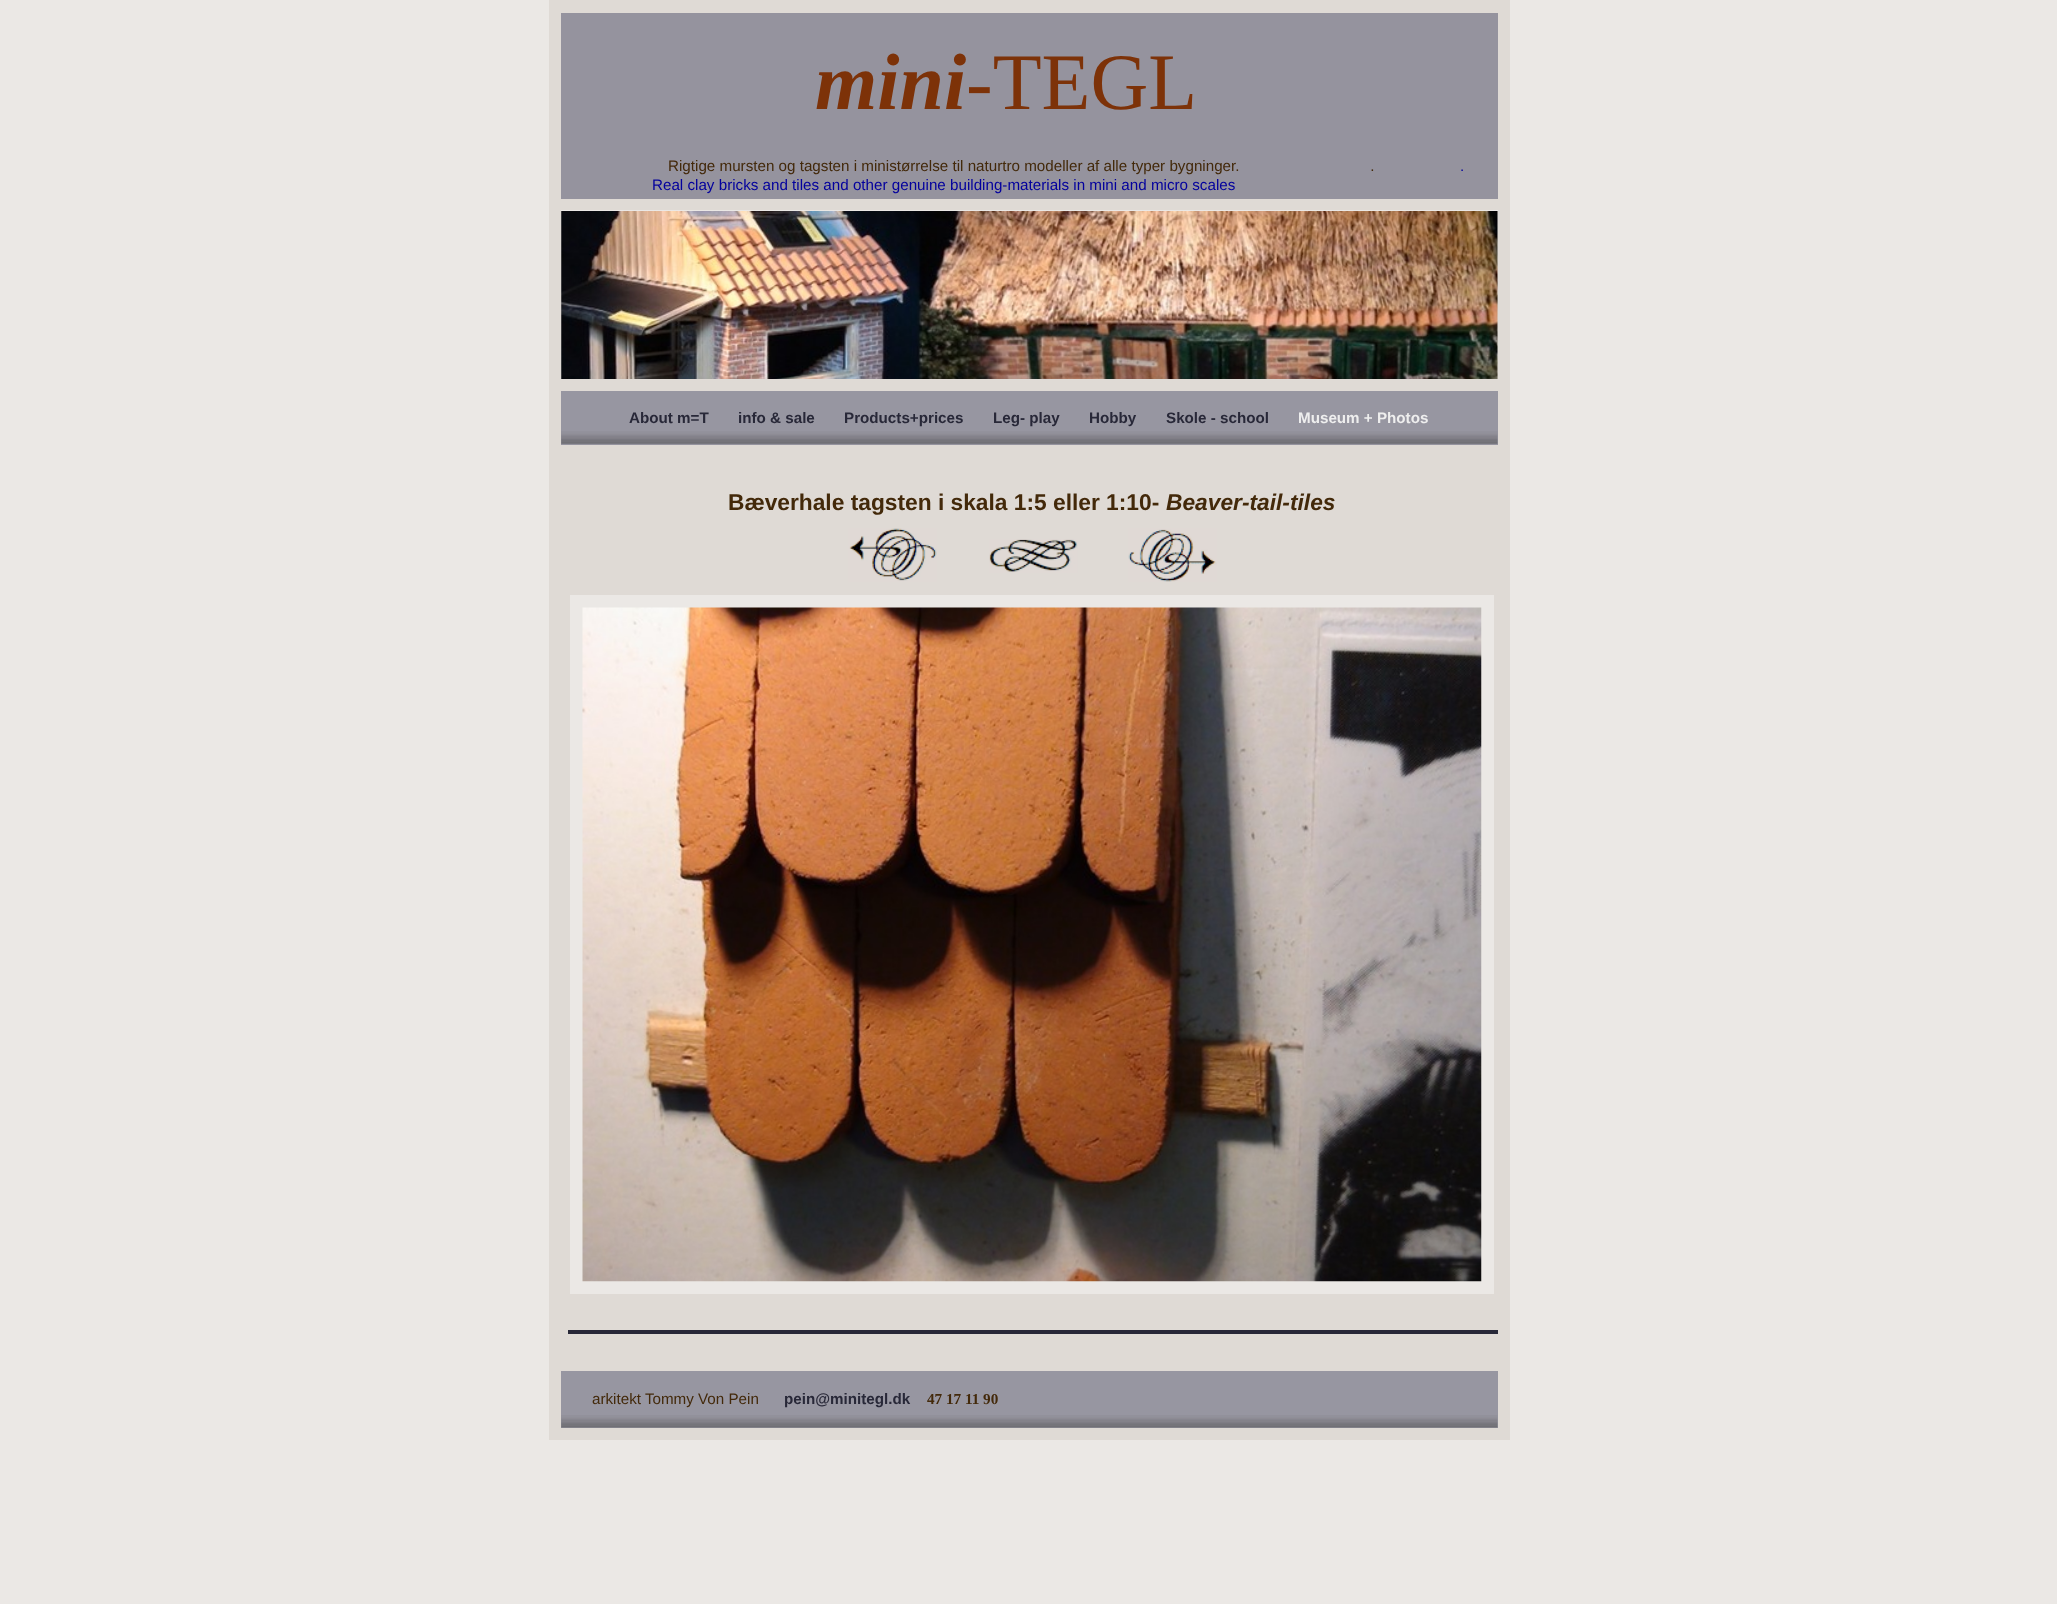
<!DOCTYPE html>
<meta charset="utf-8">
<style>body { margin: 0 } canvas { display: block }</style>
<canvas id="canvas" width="2057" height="1604"></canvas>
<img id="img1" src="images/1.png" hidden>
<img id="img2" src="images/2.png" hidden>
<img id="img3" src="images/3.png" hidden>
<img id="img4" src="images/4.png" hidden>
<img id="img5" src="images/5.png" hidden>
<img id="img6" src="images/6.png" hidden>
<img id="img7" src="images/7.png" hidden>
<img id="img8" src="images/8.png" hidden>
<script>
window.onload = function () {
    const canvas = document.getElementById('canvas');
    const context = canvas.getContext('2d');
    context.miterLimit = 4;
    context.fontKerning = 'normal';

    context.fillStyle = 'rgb(235, 232, 229)';
    context.fillRect(0, 0, 2057, 1604);
    context.fillStyle = 'rgb(223, 218, 213)';
    context.fillRect(549, 0, 961, 1440);
    context.fillStyle = 'rgb(149, 147, 158)';
    context.fillRect(561, 13, 937, 186);
    context.drawImage(document.getElementById('img1'), 561, 211, 937, 168);
    context.fillStyle = 'rgb(235, 232, 229)';
    context.fillRect(561, 210, 937, 1);
    context.fillStyle = 'rgb(149, 147, 158)';
    context.fillRect(561, 444, 937, 1);
    context.fillStyle = 'rgb(151, 150, 161)';
    context.fillRect(561, 391, 937, 53);
    context.drawImage(document.getElementById('img2'), 561, 431, 937, 13);
    context.drawImage(document.getElementById('img3'), 848, 528, 89, 54);
    context.drawImage(document.getElementById('img4'), 1077, 541, 1, 32);
    context.drawImage(document.getElementById('img5'), 989, 539, 88, 34);
    context.drawImage(document.getElementById('img6'), 1128, 528, 89, 54);
    context.fillStyle = 'rgb(40, 40, 56)';
    context.fillRect(568, 1330, 930, 4);
    context.fillStyle = 'rgb(235, 232, 229)';
    context.fillRect(570, 595, 924, 699);
    context.drawImage(document.getElementById('img7'), 582, 607, 900, 675);
    context.fillStyle = 'rgb(151, 150, 161)';
    context.fillRect(561, 1371, 937, 57);
    context.drawImage(document.getElementById('img8'), 561, 1415, 937, 13);
    context.font = 'italic bold 80px Liberation Serif';
    context.fillStyle = 'rgb(125, 50, 8)';
    context.fillText('mini', 815, 109);
    context.font = '80px Liberation Serif';
    context.fillText('-TEGL', 966, 109);
    context.font = '15.2px Liberation Sans';
    context.fillStyle = 'rgb(67, 41, 10)';
    context.fillText('Rigtige mursten og tagsten i ministørrelse til naturtro modeller af alle typer bygninger.                               .', 668, 171);
    context.fillStyle = 'rgb(3, 0, 157)';
    context.fillText('.', 1460, 171);
    context.fillText('Real clay bricks and tiles and other genuine building-materials in mini and micro scales', 652, 190);
    context.font = 'bold 15.2px Liberation Sans';
    context.fillStyle = 'rgb(40, 40, 56)';
    context.fillText('About m=T', 629, 423);
    context.fillText('info & sale', 738, 423);
    context.fillText('Products+prices', 844, 423);
    context.fillText('Leg- play', 993, 423);
    context.fillText('Hobby', 1089, 423);
    context.fillText('Skole - school', 1166, 423);
    context.fillStyle = 'rgb(238, 238, 238)';
    context.fillText('Museum + Photos', 1298, 423);
    context.font = 'bold 22.75px Liberation Sans';
    context.fillStyle = 'rgb(67, 41, 10)';
    context.fillText('Bæverhale tagsten i skala 1:5 eller 1:10-', 728, 510);
    context.font = 'italic bold 22.75px Liberation Sans';
    context.fillText('Beaver-tail-tiles', 1166, 510);
    context.font = '15.2px Liberation Sans';
    context.fillText('arkitekt Tommy Von Pein', 592, 1404);
    context.font = 'bold 15.2px Liberation Sans';
    context.fillStyle = 'rgb(40, 40, 56)';
    context.fillText('pein@minitegl.dk', 784, 1404);
    context.font = 'bold 15.2px Liberation Serif';
    context.fillStyle = 'rgb(67, 41, 10)';
    context.fillText('47 17 11 90', 927, 1404);
};
</script>
